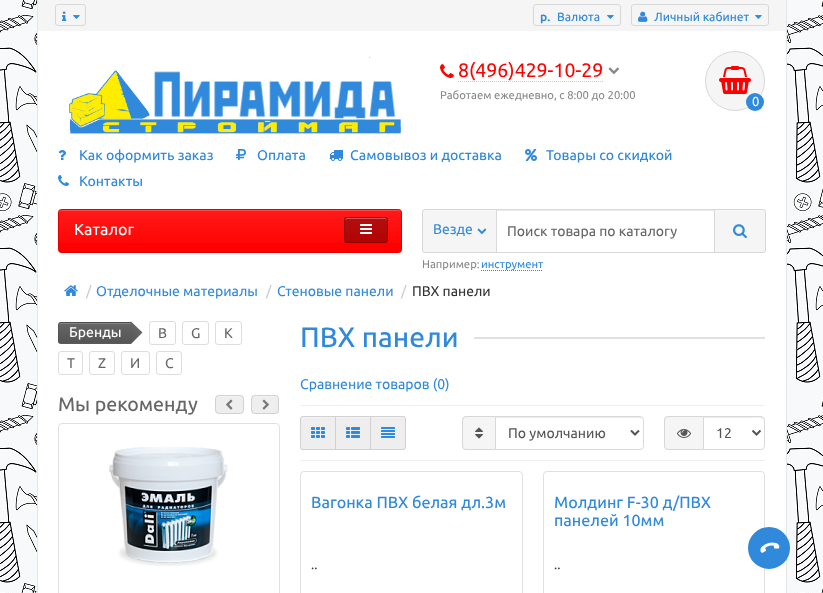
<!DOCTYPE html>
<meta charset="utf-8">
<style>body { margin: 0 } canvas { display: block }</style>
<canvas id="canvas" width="823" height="593"></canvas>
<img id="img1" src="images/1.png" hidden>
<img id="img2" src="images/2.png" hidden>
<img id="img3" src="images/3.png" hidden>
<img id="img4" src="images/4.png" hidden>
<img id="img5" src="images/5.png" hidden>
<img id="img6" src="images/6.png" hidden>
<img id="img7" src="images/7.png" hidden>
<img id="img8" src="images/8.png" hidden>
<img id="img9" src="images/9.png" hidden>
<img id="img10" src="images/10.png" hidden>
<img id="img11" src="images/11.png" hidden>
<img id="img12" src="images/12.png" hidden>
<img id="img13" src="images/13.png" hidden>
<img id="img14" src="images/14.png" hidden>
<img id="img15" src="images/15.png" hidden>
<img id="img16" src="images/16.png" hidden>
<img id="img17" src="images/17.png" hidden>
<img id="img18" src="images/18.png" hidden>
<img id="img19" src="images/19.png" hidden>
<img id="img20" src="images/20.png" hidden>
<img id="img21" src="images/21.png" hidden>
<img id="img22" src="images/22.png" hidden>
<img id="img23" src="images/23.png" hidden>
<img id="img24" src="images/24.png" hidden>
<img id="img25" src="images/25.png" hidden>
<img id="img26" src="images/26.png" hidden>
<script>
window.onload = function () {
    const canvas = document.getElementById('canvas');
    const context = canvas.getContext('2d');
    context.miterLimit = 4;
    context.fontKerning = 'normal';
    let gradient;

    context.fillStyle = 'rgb(255, 255, 255)';
    context.fillRect(0, 0, 823, 593);
    context.drawImage(document.getElementById('img1'), 0, 0, 823, 593);
    context.fillStyle = 'rgb(245, 245, 245)';
    context.fillRect(37, 0, 749, 31);
    context.fillStyle = 'rgb(230, 230, 230)';
    context.beginPath();
    context.moveTo(787, -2);
    context.lineTo(787, 33);
    context.lineTo(786, 32);
    context.lineTo(786, -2);
    context.closePath();
    context.fill();
    context.fillStyle = 'rgba(0, 0, 0, 0.06)';
    context.beginPath();
    context.moveTo(37, 33);
    context.lineTo(37, -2);
    context.lineTo(38, -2);
    context.lineTo(38, 32);
    context.closePath();
    context.fill();
    context.beginPath();
    context.roundRect(55.5, 4.5, 30, 21, 2.5);
    context.strokeStyle = 'rgb(216, 216, 216)';
    context.stroke();
    context.drawImage(document.getElementById('img2'), 62, 11, 5, 10);
    context.drawImage(document.getElementById('img3'), 73, 15, 7, 4);
    context.beginPath();
    context.roundRect(533.5, 4.5, 87, 21, 2.5);
    context.stroke();
    context.drawImage(document.getElementById('img3'), 607, 15, 7, 4);
    context.beginPath();
    context.roundRect(631.5, 4.5, 137, 21, 2.5);
    context.stroke();
    context.drawImage(document.getElementById('img4'), 638, 11, 10, 11);
    context.drawImage(document.getElementById('img3'), 755, 15, 7, 4);
    context.fillStyle = 'rgb(255, 255, 255)';
    context.fillRect(38, 31, 748, 249);
    context.fillStyle = 'rgb(230, 230, 230)';
    context.fillRect(786, 31, 1, 249);
    context.fillRect(37, 31, 1, 249);
    context.drawImage(document.getElementById('img5'), 68, 56, 333, 78);
    context.drawImage(document.getElementById('img6'), 440, 64, 14, 14);
    context.beginPath();
    context.moveTo(458, 81.5);
    context.lineTo(604, 81.5);
    context.strokeStyle = 'rgb(204, 204, 204)';
    context.setLineDash([1, 1]);
    context.stroke();
    context.drawImage(document.getElementById('img7'), 608, 67, 12, 8);
    context.fillStyle = 'rgb(245, 245, 245)';
    context.beginPath();
    context.arc(735, 81, 30, 0, 2 * Math.PI);
    context.fill();
    context.beginPath();
    context.arc(735, 81, 29.5, 0, 2 * Math.PI);
    context.strokeStyle = 'rgba(0, 0, 0, 0.12)';
    context.setLineDash([]);
    context.stroke();
    context.drawImage(document.getElementById('img8'), 719, 66, 32, 28);
    context.fillStyle = 'rgb(48, 137, 219)';
    context.beginPath();
    context.arc(755, 102, 9, 0, 2 * Math.PI);
    context.fill();
    context.drawImage(document.getElementById('img9'), 58, 150, 8, 10);
    context.drawImage(document.getElementById('img10'), 236, 149, 10, 11);
    context.drawImage(document.getElementById('img11'), 329, 150, 14, 11);
    context.drawImage(document.getElementById('img12'), 525, 149, 12, 12);
    context.drawImage(document.getElementById('img13'), 58, 175, 11, 11);
    context.fillStyle = 'rgb(255, 0, 0)';
    context.beginPath();
    context.roundRect(58, 209, 344, 44, 4);
    context.fill();
    context.fillStyle = 'rgb(255, 51, 51)';
    context.beginPath();
    context.moveTo(62, 211);
    context.lineTo(398, 211);
    context.bezierCurveTo(400, 211, 401, 212, 401, 214);
    context.bezierCurveTo(401, 212, 400, 210, 398, 210);
    context.lineTo(62, 210);
    context.bezierCurveTo(60, 210, 59, 212, 59, 214);
    context.bezierCurveTo(59, 212, 60, 211, 62, 211);
    context.closePath();
    context.fill();
    context.beginPath();
    context.roundRect(58.5, 209.5, 343, 43, 3.5);
    context.strokeStyle = 'rgba(0, 0, 0, 0.1)';
    context.stroke();
    gradient = context.createLinearGradient(230, 210, 230, 252);
    gradient.addColorStop(0, 'rgba(255, 255, 255, 0.1)');
    gradient.addColorStop(1, 'rgba(255, 255, 255, 0)');
    context.fillStyle = gradient;
    context.fillRect(59, 210, 342, 33);
    context.fillStyle = 'rgba(0, 0, 0, 0.3)';
    context.beginPath();
    context.roundRect(344, 217, 44, 26, 3);
    context.fill();
    context.fillStyle = 'rgb(201, 86, 86)';
    context.beginPath();
    context.moveTo(347, 219);
    context.lineTo(385, 219);
    context.bezierCurveTo(386, 219, 387, 220, 387, 221);
    context.bezierCurveTo(387, 216, 382, 218, 379, 218);
    context.lineTo(353, 218);
    context.bezierCurveTo(350, 218, 345, 216, 345, 221);
    context.bezierCurveTo(345, 220, 346, 219, 347, 219);
    context.closePath();
    context.fill();
    context.beginPath();
    context.roundRect(344.5, 217.5, 43, 25, 2.5);
    context.strokeStyle = 'rgba(0, 0, 0, 0.2)';
    context.stroke();
    context.drawImage(document.getElementById('img14'), 360, 224, 12, 10);
    context.fillStyle = 'rgb(245, 245, 245)';
    context.beginPath();
    context.roundRect(422, 209, 76, 44, [3, 0, 0, 3]);
    context.fill();
    context.fillStyle = 'rgb(248, 248, 248)';
    context.beginPath();
    context.moveTo(425, 211);
    context.lineTo(497, 211);
    context.lineTo(497, 210);
    context.lineTo(425, 210);
    context.bezierCurveTo(424, 210, 423, 211, 423, 212);
    context.closePath();
    context.moveTo(423, 251);
    context.lineTo(423, 245);
    context.closePath();
    context.fill('evenodd');
    context.beginPath();
    context.roundRect(422.5, 209.5, 75, 43, [2.5, 0, 0, 2.5]);
    context.strokeStyle = 'rgba(0, 0, 0, 0.12)';
    context.stroke();
    context.drawImage(document.getElementById('img15'), 477, 228, 10, 7);
    context.fillStyle = 'rgb(255, 255, 255)';
    context.fillRect(497, 211, 1, 41);
    context.fillStyle = 'rgb(236, 236, 236)';
    context.fillRect(497, 210, 217, 1);
    context.strokeStyle = 'rgb(217, 217, 217)';
    context.strokeRect(496.5, 209.5, 218, 43);
    context.fillStyle = 'rgb(245, 245, 245)';
    context.beginPath();
    context.roundRect(714, 209, 52, 44, [0, 3, 3, 0]);
    context.fill();
    context.fillStyle = 'rgb(248, 248, 248)';
    context.beginPath();
    context.moveTo(715, 211);
    context.lineTo(763, 211);
    context.bezierCurveTo(764, 211, 765, 212, 765, 213);
    context.lineTo(765, 212);
    context.bezierCurveTo(765, 211, 764, 210, 763, 210);
    context.lineTo(715, 210);
    context.closePath();
    context.fill();
    context.beginPath();
    context.roundRect(714.5, 209.5, 51, 43, [0, 2.5, 2.5, 0]);
    context.strokeStyle = 'rgba(0, 0, 0, 0.12)';
    context.stroke();
    context.drawImage(document.getElementById('img16'), 733, 224, 14, 15);
    context.beginPath();
    context.moveTo(481, 270.5);
    context.lineTo(543, 270.5);
    context.strokeStyle = 'rgb(48, 137, 219)';
    context.setLineDash([1, 1]);
    context.stroke();
    context.fillStyle = 'rgb(255, 255, 255)';
    context.fillRect(38, 280, 748, 313);
    context.fillStyle = 'rgb(230, 230, 230)';
    context.fillRect(786, 280, 1, 313);
    context.fillRect(37, 280, 1, 313);
    context.drawImage(document.getElementById('img17'), 64, 285, 14, 11);
    gradient = context.createLinearGradient(137, 327, 125, 338);
    gradient.addColorStop(0, 'rgb(102, 102, 102)');
    gradient.addColorStop(1, 'rgb(85, 85, 85)');
    context.fillStyle = gradient;
    context.beginPath();
    context.moveTo(131, 321.5);
    context.lineTo(142.5, 332.5);
    context.lineTo(131, 344);
    context.lineTo(119.5, 332.5);
    context.closePath();
    context.fill();
    context.save();
    context.beginPath();
    context.roundRect(58, 322, 73, 22, [3, 0, 0, 3]);
    context.clip();
    gradient = context.createLinearGradient(95, 303, 95, 323);
    gradient.addColorStop(0, 'rgb(102, 102, 102)');
    gradient.addColorStop(1, 'rgb(85, 85, 85)');
    context.fillStyle = gradient;
    context.fillRect(58, 322, 73, 1);
    gradient = context.createLinearGradient(95, 323, 95, 343);
    gradient.addColorStop(0, 'rgb(102, 102, 102)');
    gradient.addColorStop(1, 'rgb(85, 85, 85)');
    context.fillStyle = gradient;
    context.fillRect(58, 323, 73, 20);
    gradient = context.createLinearGradient(95, 343, 95, 363);
    gradient.addColorStop(0, 'rgb(102, 102, 102)');
    gradient.addColorStop(1, 'rgb(85, 85, 85)');
    context.fillStyle = gradient;
    context.fillRect(58, 343, 73, 1);
    context.restore();
    context.fillStyle = 'rgb(133, 133, 133)';
    context.beginPath();
    context.moveTo(61, 324);
    context.lineTo(131, 324);
    context.lineTo(131, 323);
    context.lineTo(61, 323);
    context.bezierCurveTo(60, 323, 59, 324, 59, 325);
    context.lineTo(59, 326);
    context.bezierCurveTo(59, 325, 60, 324, 61, 324);
    context.closePath();
    context.fill();
    context.fillStyle = 'rgba(0, 0, 0, 0.1)';
    context.beginPath();
    context.moveTo(61, 322);
    context.lineTo(131, 322);
    context.lineTo(131, 344);
    context.lineTo(61, 344);
    context.bezierCurveTo(59, 344, 58, 343, 58, 341);
    context.lineTo(58, 325);
    context.bezierCurveTo(58, 323, 59, 322, 61, 322);
    context.closePath();
    context.moveTo(61, 323);
    context.lineTo(131, 323);
    context.lineTo(131, 343);
    context.lineTo(61, 343);
    context.bezierCurveTo(60, 343, 59, 342, 59, 341);
    context.lineTo(59, 325);
    context.bezierCurveTo(59, 324, 60, 323, 61, 323);
    context.closePath();
    context.fill('evenodd');
    context.beginPath();
    context.roundRect(149.5, 321.5, 26, 23, 2.5);
    context.strokeStyle = 'rgb(221, 221, 221)';
    context.setLineDash([]);
    context.stroke();
    context.beginPath();
    context.roundRect(182.5, 321.5, 26, 23, 2.5);
    context.stroke();
    context.beginPath();
    context.roundRect(215.5, 321.5, 26, 23, 2.5);
    context.stroke();
    context.beginPath();
    context.roundRect(58.5, 351.5, 24, 23, 2.5);
    context.stroke();
    context.beginPath();
    context.roundRect(89.5, 351.5, 25, 23, 2.5);
    context.stroke();
    context.beginPath();
    context.roundRect(121.5, 351.5, 28, 23, 2.5);
    context.stroke();
    context.beginPath();
    context.roundRect(156.5, 351.5, 25, 23, 2.5);
    context.stroke();
    context.fillStyle = 'rgb(238, 238, 238)';
    context.beginPath();
    context.roundRect(215, 395, 29, 19, 4);
    context.fill();
    context.fillStyle = 'rgb(243, 243, 243)';
    context.beginPath();
    context.moveTo(219, 397);
    context.lineTo(236, 397);
    context.bezierCurveTo(241.5, 397, 243, 397.5, 243, 400.5);
    context.bezierCurveTo(243, 395.5, 241, 396, 236.5, 396);
    context.lineTo(222.5, 396);
    context.bezierCurveTo(218, 396, 216, 395.5, 216, 400.5);
    context.bezierCurveTo(216, 398.5, 217, 397, 219, 397);
    context.closePath();
    context.fill();
    context.beginPath();
    context.roundRect(215.5, 395.5, 28, 18, 3.5);
    context.strokeStyle = 'rgba(0, 0, 0, 0.12)';
    context.stroke();
    context.drawImage(document.getElementById('img18'), 226, 399, 7, 11);
    context.fillStyle = 'rgb(238, 238, 238)';
    context.beginPath();
    context.roundRect(251, 395, 28, 19, 4);
    context.fill();
    context.fillStyle = 'rgb(243, 243, 243)';
    context.beginPath();
    context.moveTo(255, 397);
    context.lineTo(272, 397);
    context.bezierCurveTo(276, 397, 277.5, 398, 278, 399.5);
    context.bezierCurveTo(278, 395.5, 274.5, 396, 271.5, 396);
    context.lineTo(258.5, 396);
    context.bezierCurveTo(252.5, 396, 252, 396.5, 252, 402);
    context.bezierCurveTo(252, 400, 252, 397, 255, 397);
    context.closePath();
    context.moveTo(278, 407);
    context.lineTo(278, 411);
    context.closePath();
    context.fill('evenodd');
    context.beginPath();
    context.roundRect(251.5, 395.5, 27, 18, 3.5);
    context.stroke();
    context.drawImage(document.getElementById('img19'), 262, 399, 7, 11);
    context.beginPath();
    context.roundRect(58.5, 423.5, 221, 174, 3.5);
    context.strokeStyle = 'rgb(224, 224, 224)';
    context.stroke();
    context.drawImage(document.getElementById('img20'), 109, 446, 119, 120);
    context.fillStyle = 'rgb(224, 224, 224)';
    context.fillRect(474, 337, 291, 2);
    context.fillStyle = 'rgb(238, 238, 238)';
    context.fillRect(300, 405, 465, 1);
    context.beginPath();
    context.roundRect(300, 416, 36, 34, [3, 0, 0, 3]);
    context.fill();
    context.fillStyle = 'rgb(243, 243, 243)';
    context.beginPath();
    context.moveTo(303, 418);
    context.lineTo(335, 418);
    context.lineTo(335, 417);
    context.lineTo(303, 417);
    context.bezierCurveTo(302, 417, 301, 418, 301, 419);
    context.lineTo(301, 420);
    context.bezierCurveTo(301, 419, 302, 418, 303, 418);
    context.closePath();
    context.fill();
    context.beginPath();
    context.roundRect(300.5, 416.5, 35, 33, [2.5, 0, 0, 2.5]);
    context.strokeStyle = 'rgba(0, 0, 0, 0.12)';
    context.stroke();
    context.drawImage(document.getElementById('img21'), 311, 427, 14, 11);
    context.fillStyle = 'rgb(238, 238, 238)';
    context.fillRect(336, 418, 34, 31);
    context.fillStyle = 'rgb(243, 243, 243)';
    context.fillRect(336, 417, 34, 1);
    context.strokeStyle = 'rgb(209, 209, 209)';
    context.strokeRect(335.5, 416.5, 35, 33);
    context.drawImage(document.getElementById('img22'), 346, 427, 14, 11);
    context.fillStyle = 'rgb(238, 238, 238)';
    context.beginPath();
    context.roundRect(370, 416, 36, 34, [0, 3, 3, 0]);
    context.fill();
    context.fillStyle = 'rgb(243, 243, 243)';
    context.beginPath();
    context.moveTo(371, 418);
    context.lineTo(403, 418);
    context.bezierCurveTo(404, 418, 405, 419, 405, 420);
    context.lineTo(405, 419);
    context.bezierCurveTo(405, 418, 404, 417, 403, 417);
    context.lineTo(371, 417);
    context.closePath();
    context.fill();
    context.beginPath();
    context.roundRect(370.5, 416.5, 35, 33, [0, 2.5, 2.5, 0]);
    context.strokeStyle = 'rgba(0, 0, 0, 0.12)';
    context.stroke();
    context.drawImage(document.getElementById('img23'), 381, 427, 14, 11);
    context.fillStyle = 'rgb(245, 245, 245)';
    context.beginPath();
    context.roundRect(462, 416, 33, 34, [4, 0, 0, 4]);
    context.fill();
    context.fillStyle = 'rgba(0, 0, 0, 0.12)';
    context.beginPath();
    context.moveTo(466, 416);
    context.lineTo(495, 416);
    context.lineTo(495, 450);
    context.lineTo(466, 450);
    context.bezierCurveTo(464, 450, 462, 448, 462, 446);
    context.lineTo(462, 420);
    context.bezierCurveTo(462, 418, 464, 416, 466, 416);
    context.closePath();
    context.moveTo(466, 417);
    context.lineTo(495, 417);
    context.lineTo(495, 449);
    context.lineTo(466, 449);
    context.bezierCurveTo(464.5, 449, 463, 447.5, 463, 446);
    context.lineTo(463, 420);
    context.bezierCurveTo(463, 418.5, 464.5, 417, 466, 417);
    context.closePath();
    context.fill('evenodd');
    context.drawImage(document.getElementById('img24'), 475, 427, 8, 12);
    context.fillStyle = 'rgb(236, 236, 236)';
    context.beginPath();
    context.moveTo(496, 418);
    context.lineTo(640, 418);
    context.bezierCurveTo(642, 418, 643, 419, 643, 421);
    context.bezierCurveTo(643, 419, 642, 417, 640, 417);
    context.lineTo(496, 417);
    context.closePath();
    context.fill();
    context.beginPath();
    context.roundRect(495.5, 416.5, 148, 33, [0, 3.5, 3.5, 0]);
    context.strokeStyle = 'rgb(217, 217, 217)';
    context.stroke();
    context.beginPath();
    context.moveTo(631, 430.5);
    context.lineTo(635, 434.5);
    context.lineTo(639, 430.5);
    context.strokeStyle = 'rgb(85, 85, 85)';
    context.lineWidth = 2;
    context.stroke();
    context.fillStyle = 'rgb(245, 245, 245)';
    context.beginPath();
    context.roundRect(664, 416, 39, 34, [4, 0, 0, 4]);
    context.fill();
    context.fillStyle = 'rgba(0, 0, 0, 0.12)';
    context.beginPath();
    context.moveTo(668, 416);
    context.lineTo(703, 416);
    context.lineTo(703, 450);
    context.lineTo(668, 450);
    context.bezierCurveTo(666, 450, 664, 448, 664, 446);
    context.lineTo(664, 420);
    context.bezierCurveTo(664, 418, 666, 416, 668, 416);
    context.closePath();
    context.moveTo(668, 417);
    context.lineTo(703, 417);
    context.lineTo(703, 449);
    context.lineTo(668, 449);
    context.bezierCurveTo(666.5, 449, 665, 447.5, 665, 446);
    context.lineTo(665, 420);
    context.bezierCurveTo(665, 418.5, 666.5, 417, 668, 417);
    context.closePath();
    context.fill('evenodd');
    context.drawImage(document.getElementById('img25'), 677, 429, 14, 9);
    context.fillStyle = 'rgb(236, 236, 236)';
    context.beginPath();
    context.moveTo(704, 418);
    context.lineTo(742, 418);
    context.bezierCurveTo(755, 418, 760, 417, 763, 419);
    context.bezierCurveTo(764, 419, 764, 421, 764, 424);
    context.lineTo(764, 420);
    context.bezierCurveTo(764, 418, 763, 417, 761, 417);
    context.lineTo(704, 417);
    context.closePath();
    context.moveTo(764, 444);
    context.lineTo(764, 447);
    context.closePath();
    context.fill('evenodd');
    context.beginPath();
    context.roundRect(703.5, 416.5, 61, 33, [0, 3.5, 3.5, 0]);
    context.strokeStyle = 'rgb(217, 217, 217)';
    context.lineWidth = 1;
    context.stroke();
    context.beginPath();
    context.moveTo(752.5, 430.5);
    context.lineTo(756.5, 434.5);
    context.lineTo(760.5, 430.5);
    context.strokeStyle = 'rgb(85, 85, 85)';
    context.lineWidth = 2;
    context.stroke();
    context.fillStyle = 'rgb(238, 238, 238)';
    context.fillRect(300, 460, 465, 1);
    context.beginPath();
    context.roundRect(300.5, 471.5, 222, 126, 3.5);
    context.strokeStyle = 'rgb(224, 224, 224)';
    context.lineWidth = 1;
    context.stroke();
    context.beginPath();
    context.roundRect(543.5, 471.5, 221, 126, 3.5);
    context.stroke();
    context.fillStyle = 'rgb(48, 137, 219)';
    context.beginPath();
    context.arc(769, 548, 20, 0, 2 * Math.PI);
    context.fill();
    context.drawImage(document.getElementById('img26'), 760, 542, 20, 11);
    context.beginPath();
    context.arc(769, 548, 20, 0, 2 * Math.PI);
    context.strokeStyle = 'rgb(48, 137, 219)';
    context.lineWidth = 2;
    context.stroke();
    context.font = 'bold 12px Ubuntu';
    context.fillText('р.', 540, 21);
    context.font = '500 12px Ubuntu';
    context.fillText('Валюта', 557, 21);
    context.fillText('Личный кабинет', 654, 21);
    context.font = '19.5px Ubuntu';
    context.fillStyle = 'rgb(255, 0, 0)';
    context.fillText('8(496)429-10-29', 458, 77);
    context.font = '11.25px Ubuntu';
    context.fillStyle = 'rgb(136, 136, 136)';
    context.fillText('Работаем ежедневно, с 8:00 до 20:00', 440, 99);
    context.font = '13px Ubuntu';
    context.fillStyle = 'rgb(255, 255, 255)';
    context.fillText('0', 752, 106);
    context.font = '500 14px Ubuntu';
    context.fillStyle = 'rgb(48, 137, 219)';
    context.fillText('Как оформить заказ', 79, 160);
    context.fillText('Оплата', 257, 160);
    context.fillText('Самовывоз и доставка', 350, 160);
    context.fillText('Товары со скидкой', 546, 160);
    context.fillText('Контакты', 79, 186);
    context.font = '500 16px Ubuntu';
    context.fillStyle = 'rgb(255, 255, 255)';
    context.fillText('Каталог', 74, 235);
    context.font = '14px Ubuntu';
    context.fillStyle = 'rgb(48, 137, 219)';
    context.fillText('Везде', 433, 234);
    context.fillStyle = 'rgb(102, 102, 102)';
    context.fillText('Поиск товара по каталогу', 507, 236);
    context.font = '11.25px Ubuntu';
    context.fillStyle = 'rgb(136, 136, 136)';
    context.fillText('Например:', 422, 268);
    context.fillStyle = 'rgb(48, 137, 219)';
    context.fillText('инструмент', 481, 268);
    context.font = '14px Ubuntu';
    context.fillStyle = 'rgb(204, 204, 204)';
    context.fillText('/', 86, 296);
    context.fillStyle = 'rgb(48, 137, 219)';
    context.fillText('Отделочные материалы', 96, 296);
    context.fillStyle = 'rgb(204, 204, 204)';
    context.fillText('/', 266, 296);
    context.fillStyle = 'rgb(48, 137, 219)';
    context.fillText('Стеновые панели', 277, 296);
    context.fillStyle = 'rgb(204, 204, 204)';
    context.fillText('/', 401, 296);
    context.fillStyle = 'rgb(51, 51, 51)';
    context.fillText('ПВХ панели', 412, 296);
    context.font = '500 14px Ubuntu';
    context.fillStyle = 'rgb(255, 255, 255)';
    context.fillText('Бренды', 69, 337);
    context.font = '14px Ubuntu';
    context.fillStyle = 'rgb(102, 102, 102)';
    context.fillText('B', 158, 338);
    context.fillText('G', 191, 338);
    context.fillText('K', 224, 338);
    context.fillText('T', 67, 368);
    context.fillText('Z', 98, 368);
    context.fillText('И', 130, 368);
    context.fillText('С', 165, 368);
    context.font = '500 19.5px Ubuntu';
    context.fillText('Мы рекоменду', 58, 411);
    context.font = '500 28px Ubuntu';
    context.fillStyle = 'rgb(48, 137, 219)';
    context.fillText('ПВХ панели', 300, 347);
    context.font = '14px Ubuntu';
    context.fillText('Сравнение товаров (0)', 300, 389);
    context.fillStyle = 'rgb(85, 85, 85)';
    context.fillText('По умолчанию', 508, 438);
    context.fillText('12', 716, 438);
    context.font = '500 16.1px Ubuntu';
    context.fillStyle = 'rgb(48, 137, 219)';
    context.fillText('Вагонка ПВХ белая дл.3м', 311, 508);
    context.font = '13px Ubuntu';
    context.fillStyle = 'rgb(51, 51, 51)';
    context.fillText('..', 311, 569);
    context.font = '500 16.1px Ubuntu';
    context.fillStyle = 'rgb(48, 137, 219)';
    context.fillText('Молдинг F-30 д/ПВХ', 554, 508);
    context.fillText('панелей 10мм', 554, 526);
    context.font = '13px Ubuntu';
    context.fillStyle = 'rgb(51, 51, 51)';
    context.fillText('..', 554, 569);
};
</script>
